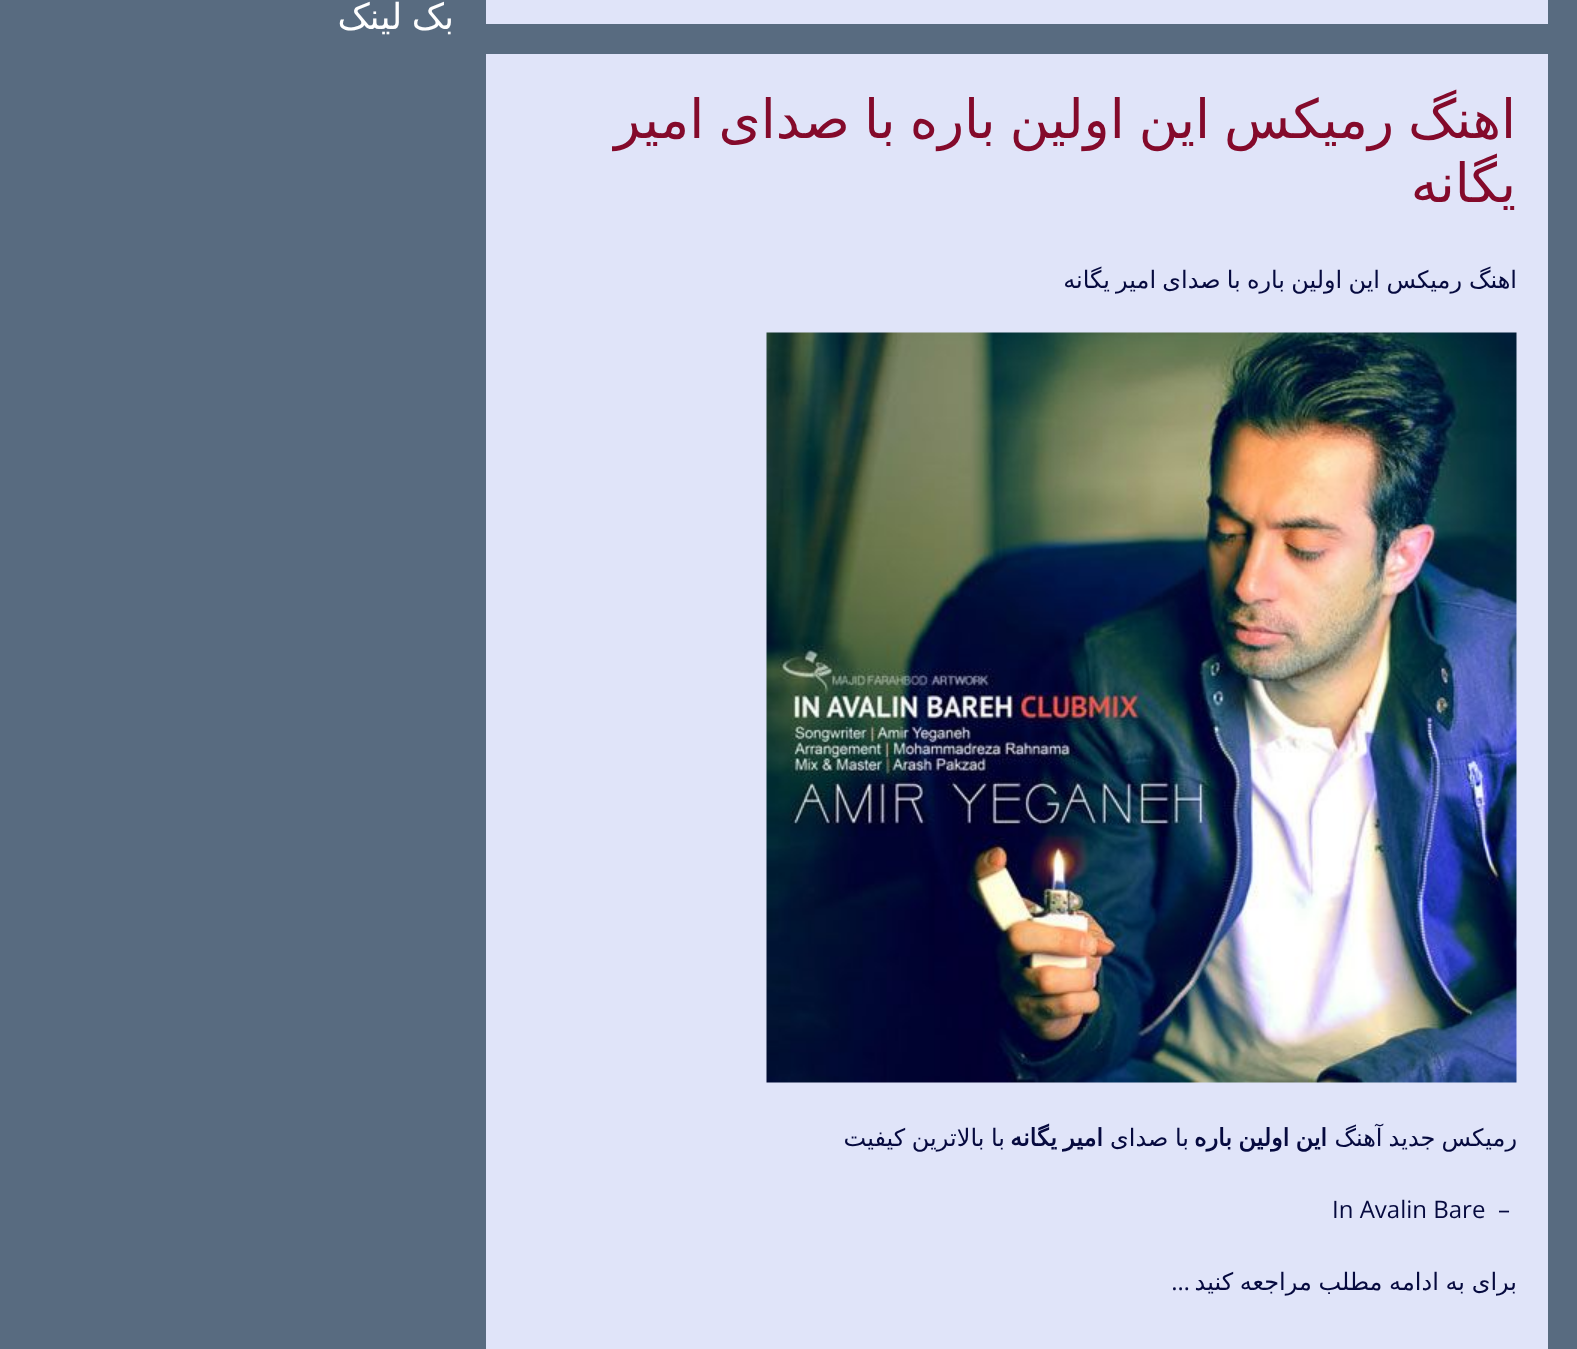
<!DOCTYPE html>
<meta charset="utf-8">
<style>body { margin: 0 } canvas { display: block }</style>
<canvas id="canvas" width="1577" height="1349"></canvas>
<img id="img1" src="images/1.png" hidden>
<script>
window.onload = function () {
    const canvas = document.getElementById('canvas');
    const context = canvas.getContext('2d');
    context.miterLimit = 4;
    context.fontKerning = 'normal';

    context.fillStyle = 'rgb(88, 107, 128)';
    context.fillRect(0, 0, 1577, 1349);
    context.fillStyle = 'rgb(224, 228, 249)';
    context.fillRect(486, 0, 1062, 24);
    context.fillRect(486, 54, 1062, 1295);
    context.drawImage(document.getElementById('img1'), 766, 332, 751, 751);
    context.wordSpacing = '-2px';
    context.direction = 'rtl';
    context.font = '36px DejaVu Sans';
    context.fillStyle = 'rgb(255, 255, 255)';
    context.fillText('بک لینک', 454, 29);
    context.wordSpacing = '0px';
    context.font = '54px DejaVu Sans';
    context.fillStyle = 'rgb(132, 10, 43)';
    context.fillText('اهنگ', 1516, 138);
    context.fillText('رمیکس', 1394, 138);
    context.wordSpacing = '-3px';
    context.fillText('این اولین باره با صدای امیر', 1210, 138);
    context.wordSpacing = '0px';
    context.fillText('یگانه', 1516, 202);
    context.font = '24px DejaVu Sans';
    context.fillStyle = 'rgb(6, 10, 63)';
    context.fillText('اهنگ', 1517, 288);
    context.fillText('رمیکس', 1462, 288);
    context.wordSpacing = '-1.5px';
    context.fillText('این اولین باره با صدای امیر یگانه', 1380, 288);
    context.fillText('رمیکس جدید آهنگ', 1517, 1146);
    context.font = 'bold 24px DejaVu Sans';
    context.fillText('این اولین باره', 1327, 1146);
    context.wordSpacing = '-1px';
    context.font = '24px DejaVu Sans';
    context.fillText('با صدای', 1189, 1146);
    context.wordSpacing = '-1.5px';
    context.font = 'bold 24px DejaVu Sans';
    context.fillText('امیر یگانه', 1103, 1146);
    context.wordSpacing = '-1px';
    context.font = '24px DejaVu Sans';
    context.fillText('با بالاترین کیفیت', 1005, 1146);
    context.wordSpacing = '0px';
    context.direction = 'ltr';
    context.font = '24px Open Sans';
    context.fillText('–', 1498, 1218);
    context.fillText('In Avalin Bare', 1332, 1218);
    context.direction = 'rtl';
    context.font = '24px DejaVu Sans';
    context.fillText('برای', 1517, 1290);
    context.wordSpacing = '-1px';
    context.fillText('به ادامه مطلب مراجعه کنید', 1465, 1290);
    context.wordSpacing = '0px';
    context.font = '24px Open Sans';
    context.fillText('…', 1190, 1290);
};
</script>
